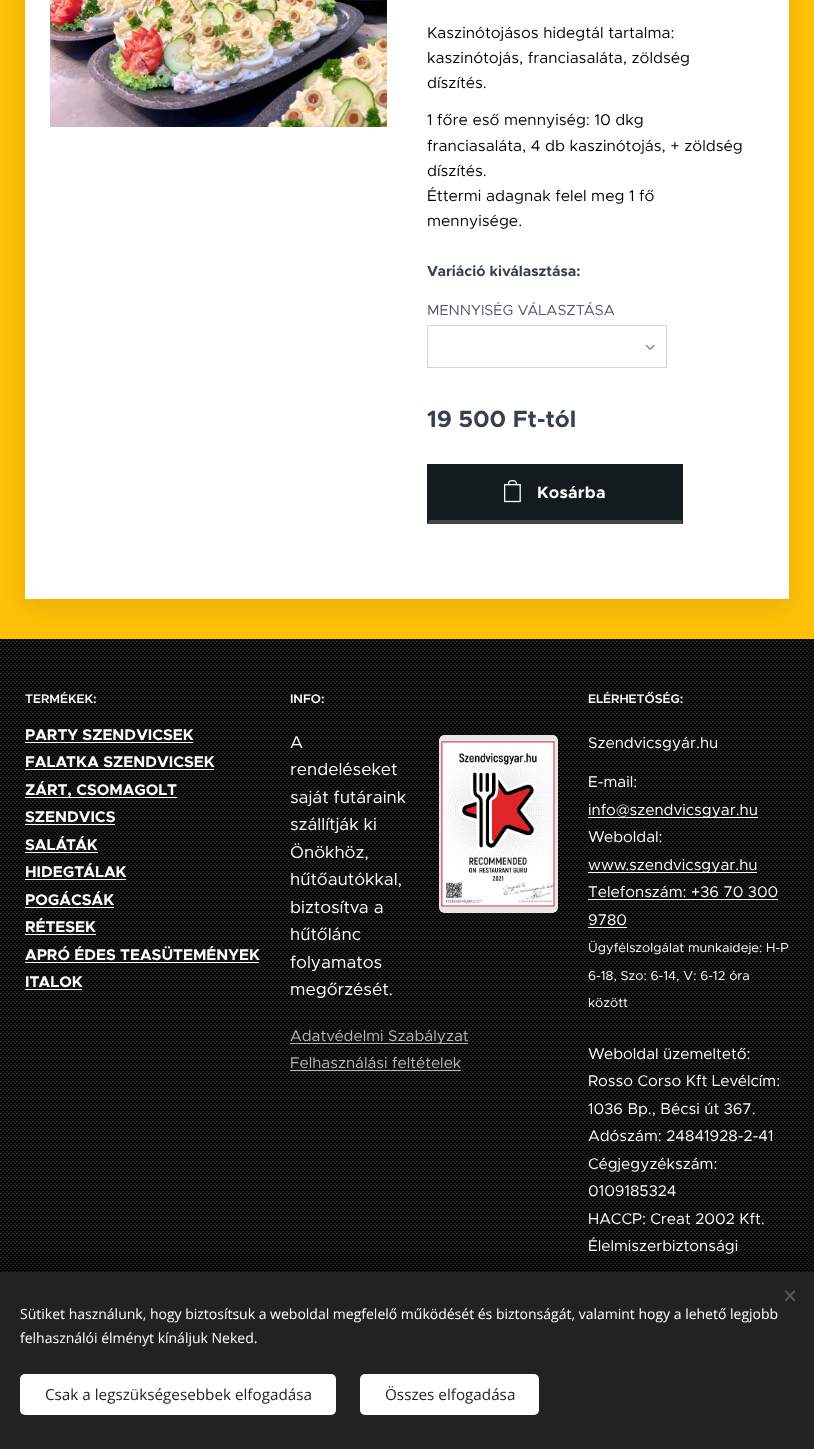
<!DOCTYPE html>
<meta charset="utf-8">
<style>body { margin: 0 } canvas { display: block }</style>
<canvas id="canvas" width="814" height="1449"></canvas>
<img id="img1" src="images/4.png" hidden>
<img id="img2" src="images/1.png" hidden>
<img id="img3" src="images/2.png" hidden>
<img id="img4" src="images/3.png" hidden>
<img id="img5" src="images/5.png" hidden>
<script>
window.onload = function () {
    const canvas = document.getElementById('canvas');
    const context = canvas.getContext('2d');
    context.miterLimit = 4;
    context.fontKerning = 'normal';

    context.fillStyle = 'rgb(255, 255, 255)';
    context.fillRect(0, 0, 814, 1449);
    context.fillStyle = 'rgb(255, 193, 7)';
    context.fillRect(0, 0, 814, 639);
    context.drawImage(document.getElementById('img1'), 0, 639, 814, 633);
    context.fillStyle = 'rgba(0, 0, 0, 0.1)';
    context.filter = 'blur(12.5px)';
    context.beginPath();
    context.rect(25, -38, 764, 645);
    context.fill();
    context.filter = 'none';
    context.fillStyle = 'rgb(255, 255, 255)';
    context.fillRect(25, 0, 764, 599);
    context.drawImage(document.getElementById('img2'), 50, 0, 337, 127);
    context.strokeStyle = 'rgb(212, 212, 212)';
    context.strokeRect(427.5, 325.5, 239, 42);
    context.drawImage(document.getElementById('img3'), 645, 344, 10, 6);
    context.fillStyle = 'rgb(20, 27, 30)';
    context.fillRect(427, 464, 256, 60);
    context.fillStyle = 'rgb(67, 73, 75)';
    context.beginPath();
    context.moveTo(683, 524);
    context.lineTo(427, 524);
    context.lineTo(429, 520);
    context.lineTo(681, 520);
    context.closePath();
    context.fill();
    context.fillStyle = 'rgb(20, 27, 30)';
    context.beginPath();
    context.moveTo(427, 524);
    context.lineTo(427, 464);
    context.lineTo(429, 466);
    context.lineTo(429, 520);
    context.closePath();
    context.fill();
    context.drawImage(document.getElementById('img4'), 504, 480, 17, 23);
    context.fillStyle = 'rgb(255, 255, 255)';
    context.fillRect(25, 742, 168, 1);
    context.fillRect(25, 769, 189, 1);
    context.fillRect(25, 797, 152, 1);
    context.fillRect(25, 824, 90, 1);
    context.fillRect(25, 852, 73, 1);
    context.fillRect(25, 879, 101, 1);
    context.fillRect(25, 907, 89, 1);
    context.fillRect(25, 934, 71, 1);
    context.fillRect(25, 962, 234, 1);
    context.fillRect(25, 989, 57, 1);
    context.drawImage(document.getElementById('img5'), 439, 735, 119, 178);
    context.fillStyle = 'rgb(183, 183, 183)';
    context.fillRect(290, 1043, 178, 1);
    context.fillRect(290, 1070, 171, 1);
    context.fillStyle = 'rgb(255, 255, 255)';
    context.fillRect(588, 817, 170, 1);
    context.fillRect(588, 872, 169, 1);
    context.fillRect(588, 899, 190, 1);
    context.fillRect(588, 927, 39, 1);
    context.fillStyle = 'rgba(0, 0, 0, 0.33)';
    context.filter = 'blur(12.5px)';
    context.beginPath();
    context.rect(0, 1272, 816, 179);
    context.fill();
    context.filter = 'none';
    context.fillStyle = 'rgb(34, 34, 34)';
    context.fillRect(0, 1272, 814, 177);
    context.fillStyle = 'rgb(85, 85, 85)';
    context.beginPath();
    context.moveTo(784.5, 1300);
    context.lineTo(794, 1290);
    context.lineTo(795.5, 1291.5);
    context.lineTo(786, 1301.5);
    context.closePath();
    context.fill();
    context.beginPath();
    context.moveTo(786, 1290);
    context.lineTo(795.5, 1300);
    context.lineTo(794, 1301.5);
    context.lineTo(784.5, 1291.5);
    context.closePath();
    context.fill();
    context.fillStyle = 'rgb(255, 255, 255)';
    context.beginPath();
    context.roundRect(20, 1374, 316, 41, 5);
    context.fill();
    context.beginPath();
    context.roundRect(360, 1374, 179, 41, 5);
    context.fill();
    context.font = '15.7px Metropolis';
    context.fillStyle = 'rgb(0, 0, 0)';
    context.fillText('Kaszinótojásos hidegtál tartalma:', 427, 38);
    context.fillText('kaszinótojás, franciasaláta, zöldség', 427, 63);
    context.fillText('díszítés.', 427, 88);
    context.fillText('1 főre eső mennyiség: 10 dkg', 427, 125);
    context.fillText('franciasaláta, 4 db kaszinótojás, + zöldség', 427, 151);
    context.fillText('díszítés.', 427, 176);
    context.fillText('Éttermi adagnak felel meg 1 fő', 427, 201);
    context.fillText('mennyisége.', 427, 226);
    context.font = 'bold 14.6px Metropolis';
    context.fillStyle = 'rgb(55, 63, 81)';
    context.fillText('Variáció kiválasztása:', 427, 276);
    context.font = '14.6px Metropolis';
    context.fillStyle = 'rgb(78, 88, 110)';
    context.fillText('MENNYISÉG VÁLASZTÁSA', 427, 315);
    context.font = 'bold 23.5px Metropolis';
    context.fillStyle = 'rgb(55, 63, 81)';
    context.fillText('19 500 Ft-tól', 427, 427);
    context.letterSpacing = '0.25px';
    context.font = 'bold 16.5px Metropolis';
    context.fillStyle = 'rgb(255, 255, 255)';
    context.fillText('Kosárba', 537, 498);
    context.letterSpacing = '0px';
    context.font = '600 12.5px Metropolis';
    context.fillText('TERMÉKEK:', 25, 703);
    context.font = 'bold 15.5px Metropolis';
    context.fillText('PARTY SZENDVICSEK', 25, 740);
    context.fillText('FALATKA SZENDVICSEK', 25, 767);
    context.fillText('ZÁRT, CSOMAGOLT', 25, 795);
    context.fillText('SZENDVICS', 25, 822);
    context.fillText('SALÁTÁK', 25, 850);
    context.fillText('HIDEGTÁLAK', 25, 877);
    context.fillText('POGÁCSÁK', 25, 905);
    context.fillText('RÉTESEK', 25, 932);
    context.fillText('APRÓ ÉDES TEASÜTEMÉNYEK', 25, 960);
    context.fillText('ITALOK', 25, 987);
    context.font = '600 12.5px Metropolis';
    context.fillText('INFO:', 290, 703);
    context.font = '17.25px Metropolis';
    context.fillText('A', 290, 748);
    context.fillText('rendeléseket', 290, 775);
    context.fillText('saját futáraink', 290, 803);
    context.fillText('szállítják ki', 290, 830);
    context.fillText('Önökhöz,', 290, 858);
    context.fillText('hűtőautókkal,', 290, 885);
    context.fillText('biztosítva a', 290, 913);
    context.fillText('hűtőlánc', 290, 940);
    context.fillText('folyamatos', 290, 968);
    context.fillText('megőrzését.', 290, 995);
    context.font = '15.5px Metropolis';
    context.fillStyle = 'rgb(183, 183, 183)';
    context.fillText('Adatvédelmi Szabályzat', 290, 1041);
    context.fillText('Felhasználási feltételek', 290, 1068);
    context.font = '600 12.5px Metropolis';
    context.fillStyle = 'rgb(255, 255, 255)';
    context.fillText('ELÉRHETŐSÉG:', 588, 703);
    context.font = '15.5px Metropolis';
    context.fillText('Szendvicsgyár.hu', 588, 748);
    context.fillText('E-mail:', 588, 787);
    context.fillText('info@szendvicsgyar.hu', 588, 815);
    context.fillText('Weboldal:', 588, 842);
    context.fillText('www.szendvicsgyar.hu', 588, 870);
    context.fillText('Telefonszám: +36 70 300', 588, 897);
    context.fillText('9780', 588, 925);
    context.font = '13px Metropolis';
    context.fillText('Ügyfélszolgálat munkaideje: H-P', 588, 952);
    context.fillText('6-18, Szo: 6-14, V: 6-12 óra', 588, 980);
    context.fillText('között', 588, 1007);
    context.font = '15.5px Metropolis';
    context.fillText('Weboldal üzemeltető:', 588, 1059);
    context.fillText('Rosso Corso Kft Levélcím:', 588, 1086);
    context.fillText('1036 Bp., Bécsi út 367.', 588, 1114);
    context.fillText('Adószám: 24841928-2-41', 588, 1141);
    context.fillText('Cégjegyzékszám:', 588, 1169);
    context.fillText('0109185324', 588, 1196);
    context.fillText('HACCP: Creat 2002 Kft.', 588, 1224);
    context.fillText('Élelmiszerbiztonsági', 588, 1251);
    context.font = '14px Open Sans';
    context.fillText('Sütiket használunk, hogy biztosítsuk a weboldal megfelelő működését és biztonságát, valamint hogy a lehető legjobb', 20, 1319);
    context.fillText('felhasználói élményt kínáljuk Neked.', 20, 1343);
    context.font = '15.25px Open Sans';
    context.fillStyle = 'rgb(34, 34, 34)';
    context.fillText('Csak a legszükségesebbek elfogadása', 45, 1400);
    context.fillText('Összes elfogadása', 385, 1400);
};
</script>
